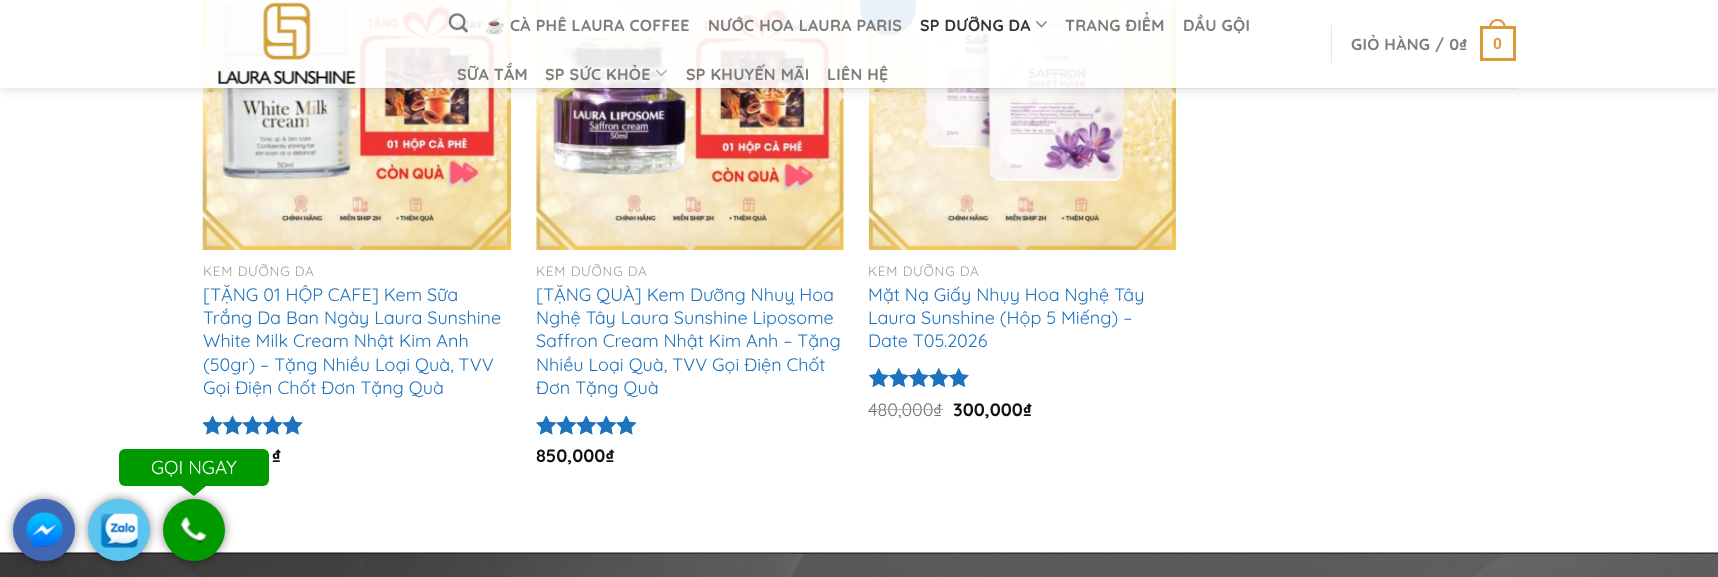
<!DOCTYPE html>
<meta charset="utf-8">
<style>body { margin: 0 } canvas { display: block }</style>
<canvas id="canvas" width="1718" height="577"></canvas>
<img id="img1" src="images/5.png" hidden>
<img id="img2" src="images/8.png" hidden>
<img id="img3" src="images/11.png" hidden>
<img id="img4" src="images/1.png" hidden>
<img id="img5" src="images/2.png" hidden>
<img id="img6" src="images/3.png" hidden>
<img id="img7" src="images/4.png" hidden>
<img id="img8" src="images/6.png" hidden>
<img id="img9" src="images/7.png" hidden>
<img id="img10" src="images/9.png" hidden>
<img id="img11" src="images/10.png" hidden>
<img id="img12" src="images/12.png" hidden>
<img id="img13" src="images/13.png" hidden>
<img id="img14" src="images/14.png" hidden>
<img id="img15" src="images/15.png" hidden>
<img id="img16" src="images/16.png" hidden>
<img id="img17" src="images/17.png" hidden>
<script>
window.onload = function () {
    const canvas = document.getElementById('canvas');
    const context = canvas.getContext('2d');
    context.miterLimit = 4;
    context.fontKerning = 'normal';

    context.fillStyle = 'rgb(255, 255, 255)';
    context.fillRect(0, 0, 1718, 577);
    context.drawImage(document.getElementById('img1'), 202, 0, 310, 250);
    context.drawImage(document.getElementById('img2'), 536, 0, 308, 250);
    context.drawImage(document.getElementById('img3'), 868, 0, 309, 250);
    context.fillStyle = 'rgb(30, 115, 190)';
    context.beginPath();
    context.arc(888, 7, 28, 0, 2 * Math.PI);
    context.fill();
    context.save();
    context.beginPath();
    context.moveTo(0, 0);
    context.lineTo(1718, 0);
    context.lineTo(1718, 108);
    context.lineTo(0, 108);
    context.closePath();
    context.moveTo(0, 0);
    context.lineTo(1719, 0);
    context.lineTo(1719, 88);
    context.lineTo(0, 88);
    context.closePath();
    context.clip('evenodd');
    context.fillStyle = 'rgba(0, 0, 0, 0.15)';
    context.filter = 'blur(6px)';
    context.beginPath();
    context.rect(1, 1, 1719, 88);
    context.fill();
    context.filter = 'none';
    context.restore();
    context.fillStyle = 'rgba(255, 255, 255, 0.9)';
    context.fillRect(0, 0, 1718, 88);
    context.drawImage(document.getElementById('img4'), 217, 2, 139, 83);
    context.drawImage(document.getElementById('img5'), 448, 13, 20, 20);
    context.drawImage(document.getElementById('img6'), 1036, 21, 11, 7);
    context.drawImage(document.getElementById('img7'), 656, 69, 11, 8);
    context.fillStyle = 'rgb(230, 230, 230)';
    context.fillRect(1331, 25, 1, 38);
    context.strokeStyle = 'rgb(221, 153, 51)';
    context.lineWidth = 3;
    context.strokeRect(1481.5, 27.5, 33, 32);
    context.fillStyle = 'rgb(221, 153, 51)';
    context.beginPath();
    context.moveTo(1497.5, 19);
    context.bezierCurveTo(1503.5, 19, 1506, 23.5, 1506, 29);
    context.lineTo(1489, 29);
    context.bezierCurveTo(1489, 23.5, 1491.5, 19, 1497.5, 19);
    context.closePath();
    context.moveTo(1497.5, 21);
    context.bezierCurveTo(1502, 21, 1504, 25, 1504, 29);
    context.lineTo(1491, 29);
    context.bezierCurveTo(1491, 25, 1493, 21, 1497.5, 21);
    context.closePath();
    context.fill('evenodd');
    context.fillStyle = 'rgba(119, 119, 119, 0.1)';
    context.fillRect(204, 88, 1312, 1);
    context.drawImage(document.getElementById('img8'), 203, 415, 100, 20);
    context.drawImage(document.getElementById('img9'), 203, 415, 100, 20);
    context.drawImage(document.getElementById('img10'), 536, 415, 101, 20);
    context.drawImage(document.getElementById('img11'), 536, 415, 101, 20);
    context.drawImage(document.getElementById('img12'), 869, 368, 100, 19);
    context.drawImage(document.getElementById('img13'), 869, 368, 100, 19);
    context.drawImage(document.getElementById('img14'), 0, 552, 1718, 25);
    context.fillStyle = 'rgba(0, 0, 0, 0.05)';
    context.fillRect(790, 553, 928, 1);
    context.fillStyle = 'rgba(0, 0, 0, 0.7)';
    context.filter = 'blur(6px)';
    context.beginPath();
    context.roundRect(15, 501, 58, 58, 29);
    context.fill();
    context.filter = 'none';
    context.fillStyle = 'rgb(66, 103, 178)';
    context.beginPath();
    context.arc(44, 530, 31, 0, 2 * Math.PI);
    context.fill();
    context.fillStyle = 'rgba(0, 0, 0, 0.7)';
    context.filter = 'blur(6px)';
    context.beginPath();
    context.roundRect(90, 501, 58, 58, 29);
    context.fill();
    context.filter = 'none';
    context.fillStyle = 'rgb(90, 197, 239)';
    context.beginPath();
    context.arc(119, 530, 31, 0, 2 * Math.PI);
    context.fill();
    context.fillStyle = 'rgba(0, 0, 0, 0.7)';
    context.filter = 'blur(6px)';
    context.beginPath();
    context.roundRect(165, 501, 58, 58, 29);
    context.fill();
    context.filter = 'none';
    context.fillStyle = 'rgb(0, 153, 0)';
    context.beginPath();
    context.roundRect(119, 449, 150, 37, 6);
    context.fill();
    context.beginPath();
    context.moveTo(181, 486);
    context.lineTo(206, 486);
    context.lineTo(194, 496);
    context.closePath();
    context.fill();
    context.beginPath();
    context.arc(194, 530, 31, 0, 2 * Math.PI);
    context.fill();
    context.drawImage(document.getElementById('img15'), 180, 516, 27, 27);
    context.drawImage(document.getElementById('img16'), 25, 511, 38, 38);
    context.drawImage(document.getElementById('img17'), 100, 513, 38, 35);
    context.letterSpacing = '0.3px';
    context.font = 'bold 16px Noto Color Emoji';
    context.fillStyle = 'rgb(125, 125, 124)';
    context.fillText('☕', 485, 31);
    context.font = 'bold 16px Quicksand';
    context.fillText('CÀ PHÊ LAURA COFFEE', 510, 31);
    context.fillText('NƯỚC HOA LAURA PARIS', 708, 31);
    context.fillStyle = 'rgb(53, 53, 53)';
    context.fillText('SP DƯỠNG DA', 920, 31);
    context.fillStyle = 'rgb(125, 125, 124)';
    context.fillText('TRANG ĐIỂM', 1065, 31);
    context.fillText('DẦU GỘI', 1183, 31);
    context.fillText('SỮA TẮM', 457, 80);
    context.fillText('SP SỨC KHỎE', 545, 80);
    context.fillText('SP KHUYẾN MÃI', 686, 80);
    context.fillText('LIÊN HỆ', 827, 80);
    context.fillText('GIỎ HÀNG / 0₫', 1351, 50);
    context.font = 'bold 16px Liberation Sans';
    context.fillStyle = 'rgb(221, 153, 51)';
    context.fillText('0', 1493, 49);
    context.letterSpacing = '0.75px';
    context.font = '13.5px Quicksand';
    context.fillStyle = 'rgb(160, 160, 160)';
    context.fillText('KEM DƯỠNG DA', 203, 276);
    context.letterSpacing = '0px';
    context.font = '18px Quicksand';
    context.fillStyle = 'rgb(30, 115, 190)';
    context.fillText('[TẶNG 01 HỘP CAFE] Kem Sữa', 203, 301);
    context.fillText('Trắng Da Ban Ngày Laura Sunshine', 203, 324);
    context.fillText('White Milk Cream Nhật Kim Anh', 203, 347);
    context.fillText('(50gr) – Tặng Nhiều Loại Quà, TVV', 203, 371);
    context.fillText('Gọi Điện Chốt Đơn Tặng Quà', 203, 394);
    context.font = 'bold 18px Quicksand';
    context.fillStyle = 'rgb(17, 17, 17)';
    context.fillText('₫', 272, 462);
    context.letterSpacing = '0.75px';
    context.font = '13.5px Quicksand';
    context.fillStyle = 'rgb(160, 160, 160)';
    context.fillText('KEM DƯỠNG DA', 536, 276);
    context.letterSpacing = '0px';
    context.font = '18px Quicksand';
    context.fillStyle = 'rgb(30, 115, 190)';
    context.fillText('[TẶNG QUÀ] Kem Dưỡng Nhuỵ Hoa', 536, 301);
    context.fillText('Nghệ Tây Laura Sunshine Liposome', 536, 324);
    context.fillText('Saffron Cream Nhật Kim Anh – Tặng', 536, 347);
    context.fillText('Nhiều Loại Quà, TVV Gọi Điện Chốt', 536, 371);
    context.fillText('Đơn Tặng Quà', 536, 394);
    context.font = 'bold 18px Quicksand';
    context.fillStyle = 'rgb(17, 17, 17)';
    context.fillText('850,000₫', 536, 462);
    context.letterSpacing = '0.75px';
    context.font = '13.5px Quicksand';
    context.fillStyle = 'rgb(160, 160, 160)';
    context.fillText('KEM DƯỠNG DA', 868, 276);
    context.letterSpacing = '0px';
    context.font = '18px Quicksand';
    context.fillStyle = 'rgb(30, 115, 190)';
    context.fillText('Mặt Nạ Giấy Nhụy Hoa Nghệ Tây', 868, 301);
    context.fillText('Laura Sunshine (Hộp 5 Miếng) –', 868, 324);
    context.fillText('Date T05.2026', 868, 347);
    context.fillStyle = 'rgb(112, 112, 112)';
    context.fillText('480,000₫', 868, 416);
    context.fillStyle = 'rgb(173, 173, 173)';
    context.fillRect(869, 409, 74, 1);
    context.font = 'bold 18px Quicksand';
    context.fillStyle = 'rgb(17, 17, 17)';
    context.fillText('300,000₫', 953, 416);
    context.font = '18.75px Quicksand';
    context.fillStyle = 'rgb(255, 255, 255)';
    context.fillText('GỌI NGAY', 151, 474);
};
</script>
